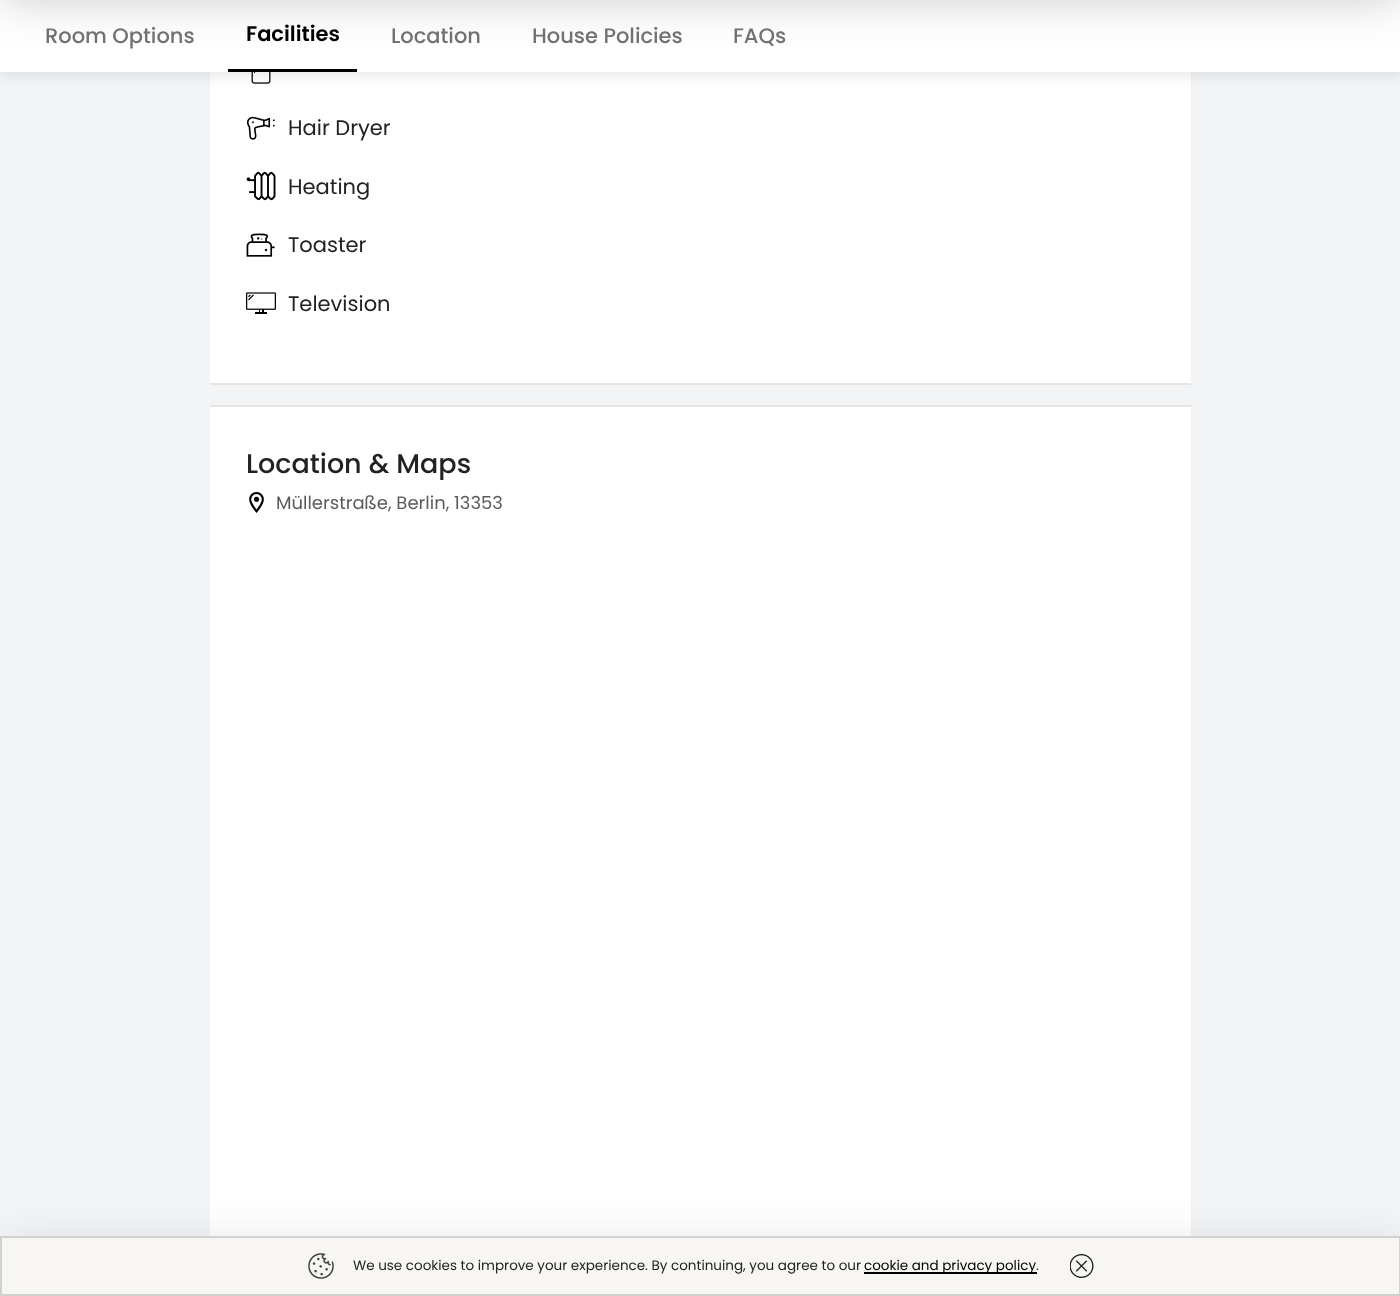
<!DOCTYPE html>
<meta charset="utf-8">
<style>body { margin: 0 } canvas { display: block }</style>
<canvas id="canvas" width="1400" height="1296"></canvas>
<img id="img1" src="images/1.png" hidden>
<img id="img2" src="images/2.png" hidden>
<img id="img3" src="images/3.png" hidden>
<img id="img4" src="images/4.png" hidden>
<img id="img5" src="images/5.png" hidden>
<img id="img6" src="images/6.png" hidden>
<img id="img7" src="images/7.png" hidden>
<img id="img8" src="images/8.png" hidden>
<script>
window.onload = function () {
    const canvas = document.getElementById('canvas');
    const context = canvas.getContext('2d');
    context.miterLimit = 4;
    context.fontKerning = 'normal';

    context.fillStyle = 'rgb(243, 244, 246)';
    context.fillRect(0, 0, 1400, 1296);
    context.fillStyle = 'rgb(255, 255, 255)';
    context.fillRect(210, 72, 981, 311);
    context.drawImage(document.getElementById('img1'), 251, 72, 20, 12);
    context.fillStyle = 'rgba(0, 0, 0, 0.1)';
    context.filter = 'blur(7.5px)';
    context.beginPath();
    context.rect(0, 3, 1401, 72);
    context.fill();
    context.filter = 'none';
    context.fillStyle = 'rgb(255, 255, 255)';
    context.fillRect(0, 0, 1400, 72);
    context.fillStyle = 'rgba(0, 0, 0, 0.2)';
    context.filter = 'blur(22.5px)';
    context.beginPath();
    context.rect(0, -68, 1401, 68);
    context.fill();
    context.filter = 'none';
    context.fillStyle = 'rgb(0, 0, 0)';
    context.fillRect(228, 69, 129, 3);
    context.fillStyle = 'rgb(228, 228, 228)';
    context.fillRect(210, 383, 981, 2);
    context.drawImage(document.getElementById('img2'), 247, 116, 28, 24);
    context.drawImage(document.getElementById('img3'), 246, 171, 30, 30);
    context.drawImage(document.getElementById('img4'), 246, 233, 29, 24);
    context.drawImage(document.getElementById('img5'), 246, 292, 30, 22);
    context.fillStyle = 'rgb(255, 255, 255)';
    context.fillRect(210, 407, 981, 829);
    context.fillStyle = 'rgb(228, 228, 228)';
    context.fillRect(210, 405, 981, 2);
    context.drawImage(document.getElementById('img6'), 249, 492, 15, 21);
    context.fillStyle = 'rgba(0, 0, 0, 0.1)';
    context.filter = 'blur(22.5px)';
    context.beginPath();
    context.rect(3, 1242, 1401, 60);
    context.fill();
    context.filter = 'none';
    context.fillStyle = 'rgb(247, 246, 243)';
    context.beginPath();
    context.rect(1, 1237, 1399, 58);
    context.fill();
    context.strokeStyle = 'rgb(209, 209, 209)';
    context.lineWidth = 2;
    context.stroke();
    context.drawImage(document.getElementById('img7'), 308, 1253, 26, 26);
    context.fillStyle = 'rgb(0, 0, 0)';
    context.fillRect(864, 1272, 173, 2);
    context.drawImage(document.getElementById('img8'), 1070, 1254, 24, 24);
    context.font = '500 21px Poppins';
    context.fillStyle = 'rgb(113, 113, 113)';
    context.fillText('Room Options', 45, 43);
    context.font = '600 21px Poppins';
    context.fillStyle = 'rgb(0, 0, 0)';
    context.fillText('Facilities', 246, 41);
    context.font = '500 21px Poppins';
    context.fillStyle = 'rgb(113, 113, 113)';
    context.fillText('Location', 391, 43);
    context.fillText('House Policies', 532, 43);
    context.fillText('FAQs', 733, 43);
    context.font = '21px Poppins';
    context.fillStyle = 'rgb(34, 34, 34)';
    context.fillText('Hair Dryer', 288, 135);
    context.fillText('Heating', 288, 194);
    context.fillText('Toaster', 288, 252);
    context.fillText('Television', 288, 311);
    context.font = '500 27px Poppins';
    context.fillText('Location & Maps', 246, 473);
    context.font = '18px Poppins';
    context.fillStyle = 'rgb(91, 91, 91)';
    context.fillText('Müllerstraße, Berlin, 13353', 276, 509);
    context.font = '13.5px Poppins';
    context.fillStyle = 'rgb(34, 34, 34)';
    context.fillText('We use cookies to improve your experience. By continuing, you agree to our', 353, 1270);
    context.fillStyle = 'rgb(0, 0, 0)';
    context.fillText('cookie and privacy policy', 864, 1270);
    context.fillStyle = 'rgb(34, 34, 34)';
    context.fillText('.', 1036, 1270);
};
</script>
